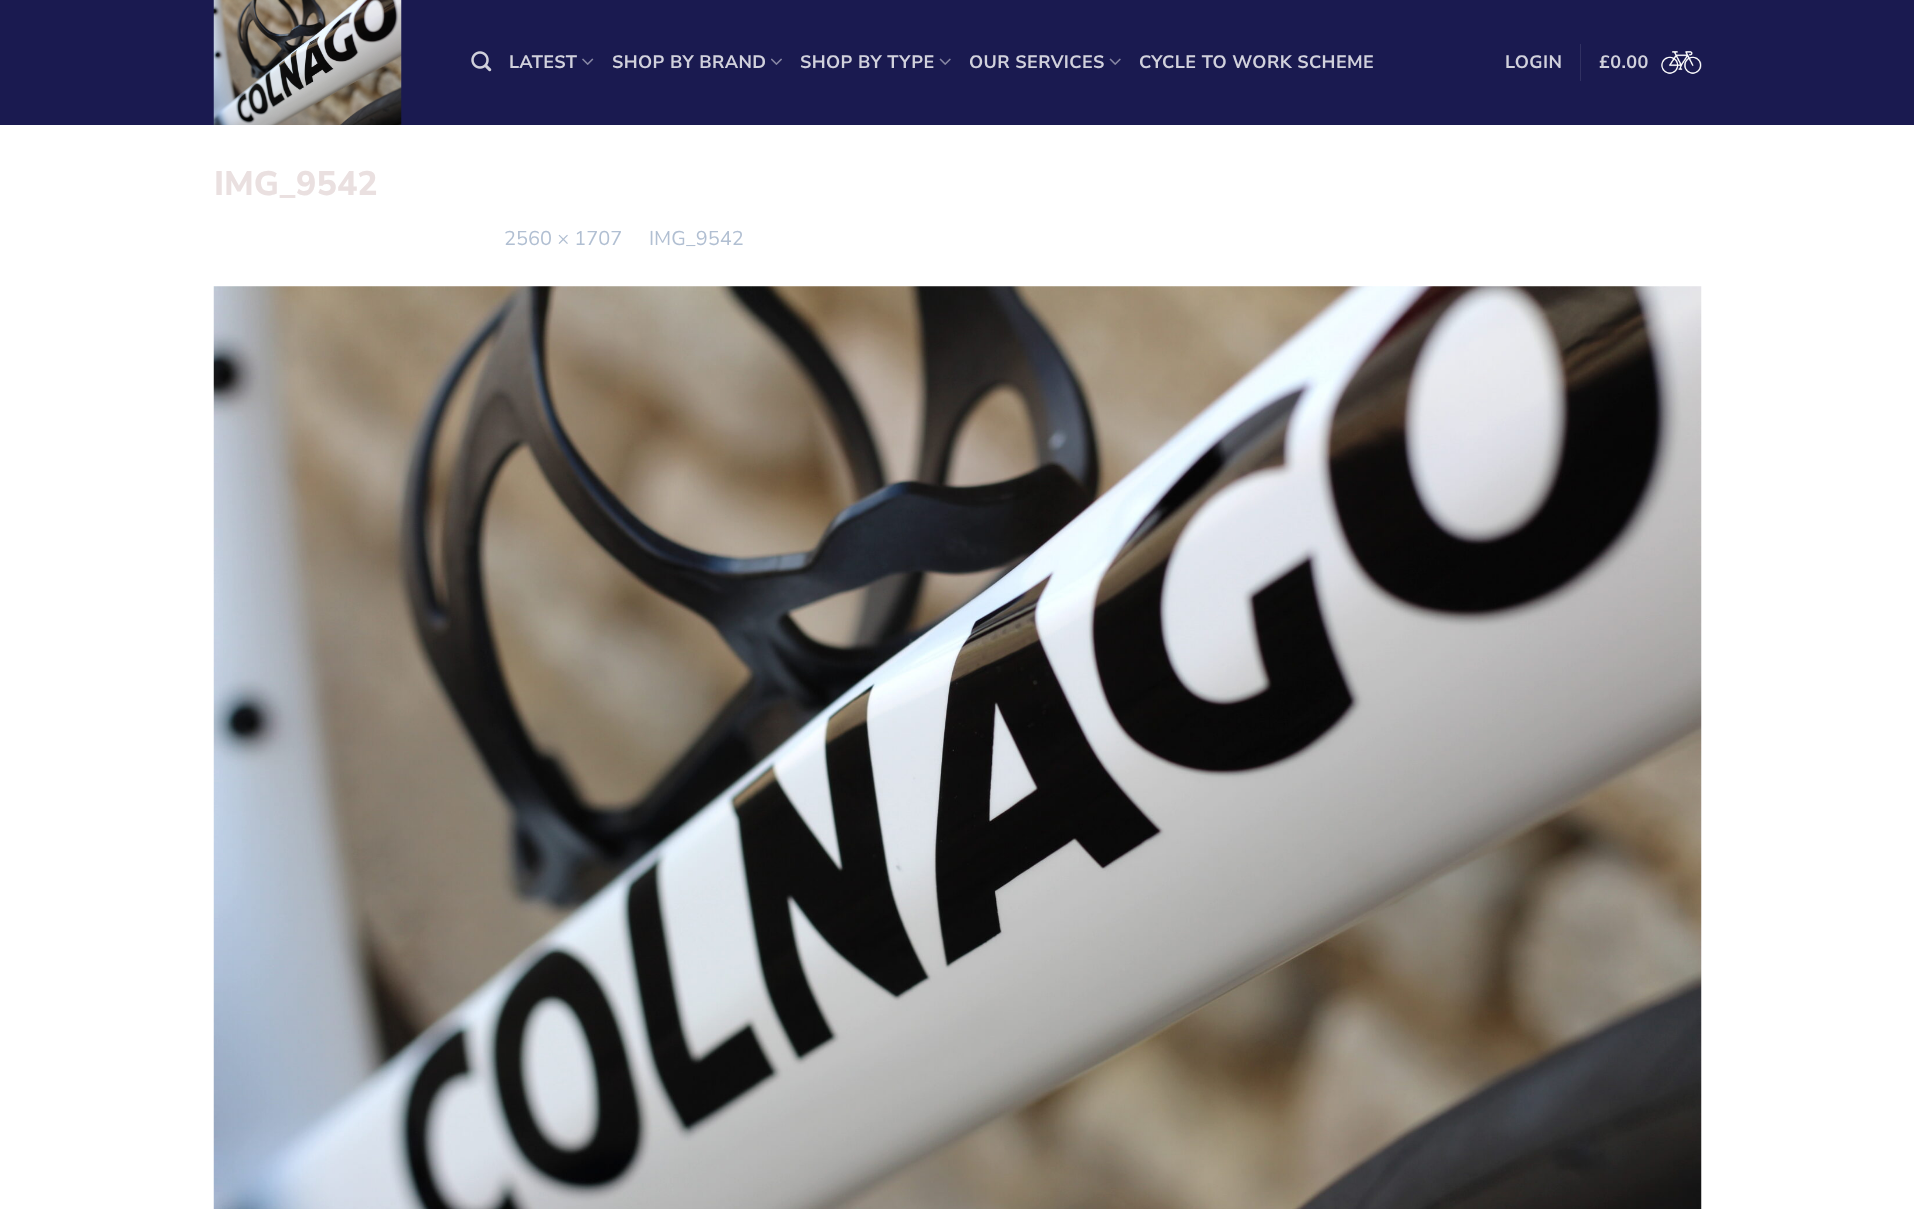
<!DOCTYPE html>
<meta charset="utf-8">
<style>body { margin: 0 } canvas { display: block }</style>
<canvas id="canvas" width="1914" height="1209"></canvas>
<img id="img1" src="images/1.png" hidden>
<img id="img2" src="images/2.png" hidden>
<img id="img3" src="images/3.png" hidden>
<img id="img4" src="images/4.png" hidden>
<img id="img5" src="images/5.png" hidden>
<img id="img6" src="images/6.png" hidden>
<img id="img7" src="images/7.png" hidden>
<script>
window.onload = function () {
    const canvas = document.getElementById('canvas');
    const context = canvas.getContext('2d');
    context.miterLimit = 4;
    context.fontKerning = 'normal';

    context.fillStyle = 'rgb(255, 255, 255)';
    context.fillRect(0, 0, 1914, 1209);
    context.fillStyle = 'rgb(26, 26, 80)';
    context.fillRect(0, 0, 1914, 125);
    context.drawImage(document.getElementById('img1'), 213, 0, 189, 125);
    context.drawImage(document.getElementById('img2'), 471, 51, 21, 21);
    context.drawImage(document.getElementById('img3'), 582, 58, 12, 7);
    context.drawImage(document.getElementById('img4'), 771, 58, 11, 7);
    context.drawImage(document.getElementById('img5'), 939, 58, 12, 7);
    context.drawImage(document.getElementById('img5'), 1109, 58, 12, 7);
    context.fillStyle = 'rgb(49, 49, 98)';
    context.fillRect(1580, 44, 1, 37);
    context.drawImage(document.getElementById('img6'), 1661, 51, 41, 23);
    context.drawImage(document.getElementById('img7'), 213, 286, 1489, 923);
    context.letterSpacing = '0.4px';
    context.font = 'bold 18px Nunito Sans';
    context.fillStyle = 'rgb(209, 209, 220)';
    context.fillText('LATEST', 509, 68);
    context.fillText('SHOP BY BRAND', 612, 68);
    context.fillText('SHOP BY TYPE', 800, 68);
    context.fillText('OUR SERVICES', 969, 68);
    context.fillText('CYCLE TO WORK SCHEME', 1139, 68);
    context.fillText('LOGIN', 1505, 68);
    context.fillText('£0.00', 1599, 68);
    context.letterSpacing = '0px';
    context.font = '800 34px Nunito Sans';
    context.fillStyle = 'rgb(234, 224, 224)';
    context.fillText('IMG_9542', 214, 195);
    context.font = '20px Nunito Sans';
    context.fillStyle = 'rgb(177, 191, 210)';
    context.fillText('2560 × 1707', 504, 245);
    context.fillText('IMG_9542', 649, 245);
};
</script>
